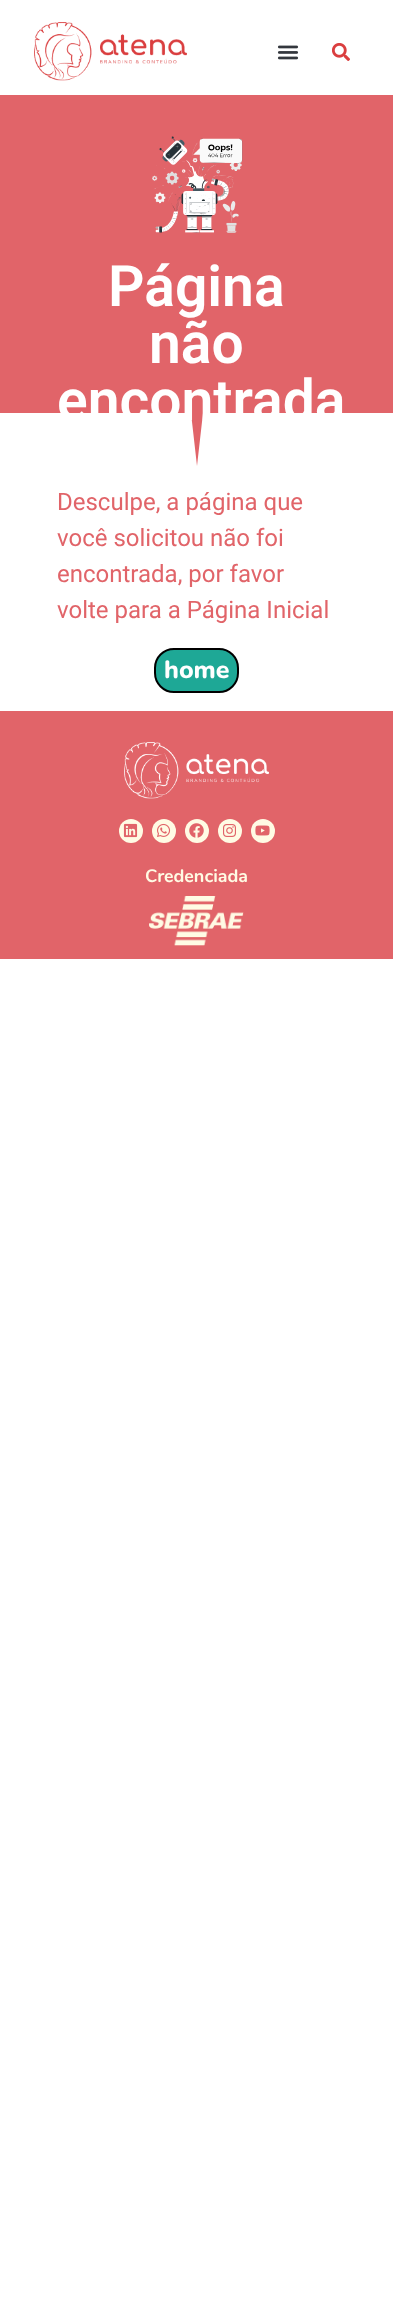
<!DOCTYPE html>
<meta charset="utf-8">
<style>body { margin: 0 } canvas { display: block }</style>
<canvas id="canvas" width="393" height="2312"></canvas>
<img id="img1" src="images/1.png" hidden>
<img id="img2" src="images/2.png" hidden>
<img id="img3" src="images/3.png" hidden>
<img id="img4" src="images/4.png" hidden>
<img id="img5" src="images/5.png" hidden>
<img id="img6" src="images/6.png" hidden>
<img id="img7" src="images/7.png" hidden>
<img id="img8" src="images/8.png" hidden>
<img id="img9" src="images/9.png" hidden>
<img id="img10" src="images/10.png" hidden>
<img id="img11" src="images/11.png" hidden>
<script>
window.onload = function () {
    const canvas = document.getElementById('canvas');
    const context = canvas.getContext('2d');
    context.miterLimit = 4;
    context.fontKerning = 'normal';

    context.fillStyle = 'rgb(255, 255, 255)';
    context.fillRect(0, 0, 393, 2312);
    context.drawImage(document.getElementById('img1'), 34, 22, 153, 59);
    context.drawImage(document.getElementById('img2'), 277, 45, 22, 15);
    context.drawImage(document.getElementById('img3'), 332, 43, 18, 18);
    context.fillStyle = 'rgb(225, 100, 105)';
    context.fillRect(0, 95, 393, 371);
    context.drawImage(document.getElementById('img4'), 152, 136, 91, 97);
    context.fillStyle = 'rgb(255, 255, 255)';
    context.beginPath();
    context.moveTo(203, 413);
    context.lineTo(197, 466);
    context.lineTo(191, 413);
    context.lineTo(0, 413);
    context.lineTo(0, 467);
    context.lineTo(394, 467);
    context.lineTo(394, 413);
    context.fill();
    context.fillStyle = 'rgb(30, 168, 150)';
    context.beginPath();
    context.roundRect(155, 649, 83, 43, 19);
    context.fill();
    context.strokeStyle = 'rgb(0, 0, 0)';
    context.lineWidth = 2;
    context.stroke();
    context.fillStyle = 'rgb(225, 100, 105)';
    context.fillRect(0, 711, 393, 248);
    context.drawImage(document.getElementById('img5'), 124, 742, 145, 57);
    context.fillStyle = 'rgb(255, 251, 228)';
    context.beginPath();
    context.arc(131, 831, 12, 0, 2 * Math.PI);
    context.fill();
    context.drawImage(document.getElementById('img6'), 123, 823, 15, 15);
    context.beginPath();
    context.arc(164, 831, 12, 0, 2 * Math.PI);
    context.fill();
    context.drawImage(document.getElementById('img7'), 157, 823, 14, 14);
    context.beginPath();
    context.arc(197, 831, 12, 0, 2 * Math.PI);
    context.fill();
    context.drawImage(document.getElementById('img8'), 189, 823, 15, 15);
    context.beginPath();
    context.arc(230, 831, 12, 0, 2 * Math.PI);
    context.fill();
    context.drawImage(document.getElementById('img9'), 223, 824, 13, 13);
    context.beginPath();
    context.arc(263, 831, 12, 0, 2 * Math.PI);
    context.fill();
    context.drawImage(document.getElementById('img10'), 255, 825, 15, 11);
    context.drawImage(document.getElementById('img11'), 149, 896, 95, 50);
    context.font = '600 57px Roboto';
    context.fillStyle = 'rgb(255, 255, 255)';
    context.fillText('Página', 108, 306);
    context.fillText('não', 149, 363);
    context.fillText('encontrada', 57, 420);
    context.font = '24px Roboto';
    context.fillStyle = 'rgb(225, 100, 105)';
    context.fillText('Desculpe, a página que', 57, 510);
    context.fillText('você solicitou não foi', 57, 546);
    context.fillText('encontrada, por favor', 57, 582);
    context.fillText('volte para a Página Inicial', 57, 618);
    context.font = '800 25px Nunito';
    context.fillStyle = 'rgb(255, 255, 255)';
    context.fillText('home', 164, 678);
    context.font = 'bold 18px Nunito';
    context.fillStyle = 'rgb(255, 251, 228)';
    context.fillText('Credenciada', 145, 882);
};
</script>
